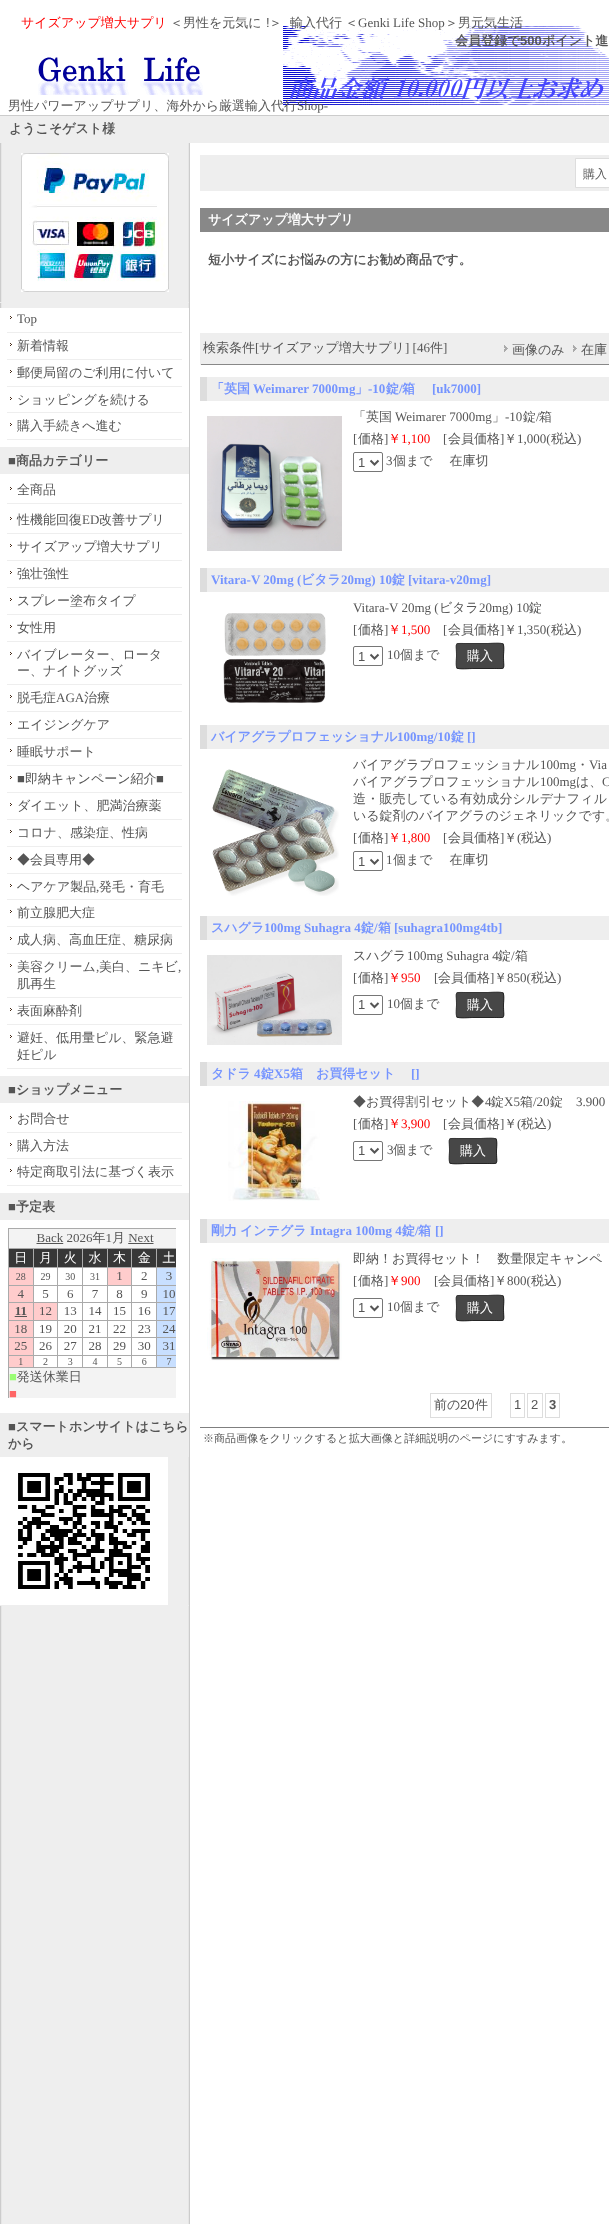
<!DOCTYPE html>
<meta charset="utf-8">
<style>body { margin: 0 } canvas { display: block }</style>
<canvas id="canvas" width="609" height="2224"></canvas>
<img id="img1" src="images/1.png" hidden>
<img id="img2" src="images/2.png" hidden>
<img id="img3" src="images/3.png" hidden>
<img id="img4" src="images/4.png" hidden>
<img id="img5" src="images/5.png" hidden>
<img id="img6" src="images/6.png" hidden>
<img id="img7" src="images/7.png" hidden>
<img id="img8" src="images/8.png" hidden>
<img id="img9" src="images/9.png" hidden>
<img id="img10" src="images/10.png" hidden>
<img id="img11" src="images/11.png" hidden>
<img id="img12" src="images/12.png" hidden>
<img id="img13" src="images/13.png" hidden>
<img id="img14" src="images/14.png" hidden>
<img id="img15" src="images/15.png" hidden>
<img id="img16" src="images/16.png" hidden>
<script>
window.onload = function () {
    const canvas = document.getElementById('canvas');
    const context = canvas.getContext('2d');
    context.miterLimit = 4;
    context.fontKerning = 'normal';

    context.fillStyle = 'rgb(255, 255, 255)';
    context.fillRect(0, 0, 609, 2224);
    context.drawImage(document.getElementById('img1'), 283, 26, 326, 79);
    context.drawImage(document.getElementById('img2'), 38, 57, 165, 38);
    context.fillStyle = 'rgb(204, 204, 204)';
    context.fillRect(0, 115, 609, 1);
    context.fillStyle = 'rgb(238, 238, 238)';
    context.fillRect(0, 116, 609, 27);
    context.drawImage(document.getElementById('img3'), 0, 143, 190, 2081);
    context.drawImage(document.getElementById('img4'), 0, 143, 189, 159);
    context.fillRect(0, 302, 189, 1);
    context.drawImage(document.getElementById('img5'), 21, 153, 148, 139);
    context.fillStyle = 'rgb(255, 255, 255)';
    context.fillRect(0, 308, 189, 1105);
    context.drawImage(document.getElementById('img6'), 10, 316, 2, 3);
    context.fillStyle = 'rgb(238, 238, 238)';
    context.fillRect(7, 332, 175, 1);
    context.drawImage(document.getElementById('img6'), 10, 343, 2, 3);
    context.fillRect(7, 359, 175, 1);
    context.drawImage(document.getElementById('img6'), 10, 370, 2, 3);
    context.fillRect(7, 386, 175, 1);
    context.drawImage(document.getElementById('img6'), 10, 397, 2, 3);
    context.fillRect(7, 412, 175, 1);
    context.drawImage(document.getElementById('img6'), 10, 423, 2, 3);
    context.fillRect(7, 439, 175, 1);
    context.fillRect(0, 447, 189, 27);
    context.drawImage(document.getElementById('img6'), 10, 487, 2, 3);
    context.fillRect(7, 503, 175, 1);
    context.drawImage(document.getElementById('img6'), 10, 517, 2, 3);
    context.fillRect(7, 533, 175, 1);
    context.drawImage(document.getElementById('img6'), 10, 544, 2, 3);
    context.fillRect(7, 560, 175, 1);
    context.drawImage(document.getElementById('img6'), 10, 571, 2, 3);
    context.fillRect(7, 587, 175, 1);
    context.drawImage(document.getElementById('img6'), 10, 598, 2, 3);
    context.fillRect(7, 614, 175, 1);
    context.drawImage(document.getElementById('img6'), 10, 625, 2, 3);
    context.fillRect(7, 641, 175, 1);
    context.drawImage(document.getElementById('img6'), 10, 652, 2, 3);
    context.fillRect(7, 684, 175, 1);
    context.drawImage(document.getElementById('img6'), 10, 695, 2, 3);
    context.fillRect(7, 711, 175, 1);
    context.drawImage(document.getElementById('img6'), 10, 722, 2, 3);
    context.fillRect(7, 738, 175, 1);
    context.drawImage(document.getElementById('img6'), 10, 749, 2, 3);
    context.fillRect(7, 765, 175, 1);
    context.drawImage(document.getElementById('img6'), 10, 776, 2, 3);
    context.fillRect(7, 792, 175, 1);
    context.drawImage(document.getElementById('img6'), 10, 803, 2, 3);
    context.fillRect(7, 819, 175, 1);
    context.drawImage(document.getElementById('img6'), 10, 830, 2, 3);
    context.fillRect(7, 846, 175, 1);
    context.drawImage(document.getElementById('img6'), 10, 857, 2, 3);
    context.fillRect(7, 873, 175, 1);
    context.drawImage(document.getElementById('img6'), 10, 884, 2, 3);
    context.fillRect(7, 899, 175, 1);
    context.drawImage(document.getElementById('img6'), 10, 910, 2, 3);
    context.fillRect(7, 926, 175, 1);
    context.drawImage(document.getElementById('img6'), 10, 937, 2, 3);
    context.fillRect(7, 953, 175, 1);
    context.drawImage(document.getElementById('img6'), 10, 964, 2, 3);
    context.fillRect(7, 997, 175, 1);
    context.drawImage(document.getElementById('img6'), 10, 1008, 2, 3);
    context.fillRect(7, 1024, 175, 1);
    context.drawImage(document.getElementById('img6'), 10, 1035, 2, 3);
    context.fillRect(7, 1068, 175, 1);
    context.fillRect(0, 1076, 189, 27);
    context.drawImage(document.getElementById('img6'), 10, 1116, 2, 3);
    context.fillRect(7, 1132, 175, 1);
    context.drawImage(document.getElementById('img6'), 10, 1143, 2, 3);
    context.fillRect(7, 1158, 175, 1);
    context.drawImage(document.getElementById('img6'), 10, 1169, 2, 3);
    context.fillRect(7, 1185, 175, 1);
    context.fillRect(0, 1193, 189, 27);
    context.drawImage(document.getElementById('img7'), 8, 1228, 168, 170);
    context.drawImage(document.getElementById('img8'), 168, 1457, 21, 148);
    context.fillRect(0, 1605, 189, 1);
    context.fillRect(0, 1413, 189, 44);
    context.drawImage(document.getElementById('img9'), 0, 1457, 168, 148);
    context.fillRect(200, 155, 409, 36);
    context.fillStyle = 'rgb(255, 255, 255)';
    context.beginPath();
    context.rect(575.5, 158.5, 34, 29);
    context.fill();
    context.strokeStyle = 'rgb(221, 221, 221)';
    context.stroke();
    context.fillStyle = 'rgb(136, 136, 136)';
    context.fillRect(200, 208, 409, 24);
    context.fillStyle = 'rgb(238, 238, 238)';
    context.fillRect(201, 333, 408, 31);
    context.fillStyle = 'rgb(136, 136, 136)';
    context.fillRect(200, 364, 409, 1);
    context.fillStyle = 'rgb(238, 238, 238)';
    context.fillRect(200, 333, 1, 32);
    context.drawImage(document.getElementById('img10'), 504, 345, 4, 7);
    context.drawImage(document.getElementById('img10'), 573, 345, 4, 7);
    context.fillRect(207, 377, 402, 24);
    context.fillStyle = 'rgb(221, 221, 221)';
    context.fillRect(200, 377, 7, 24);
    context.drawImage(document.getElementById('img11'), 207, 416, 135, 135);
    context.beginPath();
    context.roundRect(353.5, 452.5, 29, 19, 1.5);
    context.strokeStyle = 'rgb(118, 118, 118)';
    context.stroke();
    context.beginPath();
    context.moveTo(370.5, 460.5);
    context.lineTo(374.5, 464.5);
    context.lineTo(378.5, 460.5);
    context.strokeStyle = 'rgb(85, 85, 85)';
    context.lineWidth = 2;
    context.stroke();
    context.fillStyle = 'rgb(238, 238, 238)';
    context.fillRect(207, 568, 402, 24);
    context.fillStyle = 'rgb(221, 221, 221)';
    context.fillRect(200, 568, 7, 24);
    context.drawImage(document.getElementById('img12'), 223, 613, 103, 90);
    context.beginPath();
    context.roundRect(353.5, 646.5, 29, 19, 1.5);
    context.strokeStyle = 'rgb(118, 118, 118)';
    context.lineWidth = 1;
    context.stroke();
    context.beginPath();
    context.moveTo(370.5, 654.5);
    context.lineTo(374.5, 658.5);
    context.lineTo(378.5, 654.5);
    context.strokeStyle = 'rgb(85, 85, 85)';
    context.lineWidth = 2;
    context.stroke();
    context.fillStyle = 'rgb(71, 71, 71)';
    context.beginPath();
    context.roundRect(456, 643, 48, 26, 2);
    context.fill();
    context.beginPath();
    context.moveTo(503, 644);
    context.bezierCurveTo(504.5, 645.5, 503.5, 654, 503.5, 656);
    context.bezierCurveTo(503.5, 670, 506.5, 668.5, 494.5, 668.5);
    context.lineTo(472.5, 668.5);
    context.bezierCurveTo(470.5, 668.5, 458.5, 669.5, 457, 668);
    context.strokeStyle = 'rgb(37, 37, 37)';
    context.lineWidth = 1;
    context.stroke();
    context.beginPath();
    context.moveTo(457, 668);
    context.bezierCurveTo(455.5, 666.5, 456.5, 658, 456.5, 656);
    context.bezierCurveTo(456.5, 642, 453.5, 643.5, 465.5, 643.5);
    context.lineTo(487.5, 643.5);
    context.bezierCurveTo(489.5, 643.5, 501.5, 642.5, 503, 644);
    context.strokeStyle = 'rgb(55, 55, 55)';
    context.stroke();
    context.fillStyle = 'rgb(238, 238, 238)';
    context.fillRect(207, 725, 402, 24);
    context.fillStyle = 'rgb(221, 221, 221)';
    context.fillRect(200, 725, 7, 24);
    context.drawImage(document.getElementById('img13'), 212, 769, 127, 127);
    context.beginPath();
    context.roundRect(353.5, 851.5, 29, 19, 1.5);
    context.strokeStyle = 'rgb(118, 118, 118)';
    context.stroke();
    context.beginPath();
    context.moveTo(370.5, 859.5);
    context.lineTo(374.5, 863.5);
    context.lineTo(378.5, 859.5);
    context.strokeStyle = 'rgb(85, 85, 85)';
    context.lineWidth = 2;
    context.stroke();
    context.fillStyle = 'rgb(238, 238, 238)';
    context.fillRect(207, 916, 402, 24);
    context.fillStyle = 'rgb(221, 221, 221)';
    context.fillRect(200, 916, 7, 24);
    context.drawImage(document.getElementById('img14'), 207, 955, 135, 90);
    context.beginPath();
    context.roundRect(353.5, 995.5, 29, 19, 1.5);
    context.strokeStyle = 'rgb(118, 118, 118)';
    context.lineWidth = 1;
    context.stroke();
    context.beginPath();
    context.moveTo(370.5, 1003);
    context.lineTo(374.5, 1007);
    context.lineTo(378.5, 1003);
    context.strokeStyle = 'rgb(85, 85, 85)';
    context.lineWidth = 2;
    context.stroke();
    context.fillStyle = 'rgb(71, 71, 71)';
    context.beginPath();
    context.roundRect(456, 992, 48, 26, 2);
    context.fill();
    context.beginPath();
    context.moveTo(503, 993);
    context.bezierCurveTo(504.5, 994.5, 503.5, 1003, 503.5, 1005);
    context.bezierCurveTo(503.5, 1019, 506.5, 1017.5, 494.5, 1017.5);
    context.lineTo(472.5, 1017.5);
    context.bezierCurveTo(470.5, 1017.5, 458.5, 1018.5, 457, 1017);
    context.strokeStyle = 'rgb(37, 37, 37)';
    context.lineWidth = 1;
    context.stroke();
    context.beginPath();
    context.moveTo(457, 1017);
    context.bezierCurveTo(455.5, 1015.5, 456.5, 1007, 456.5, 1005);
    context.bezierCurveTo(456.5, 991, 453.5, 992.5, 465.5, 992.5);
    context.lineTo(487.5, 992.5);
    context.bezierCurveTo(489.5, 992.5, 501.5, 991.5, 503, 993);
    context.strokeStyle = 'rgb(55, 55, 55)';
    context.stroke();
    context.fillStyle = 'rgb(238, 238, 238)';
    context.fillRect(207, 1062, 402, 24);
    context.fillStyle = 'rgb(221, 221, 221)';
    context.fillRect(200, 1062, 7, 24);
    context.drawImage(document.getElementById('img15'), 228, 1101, 92, 100);
    context.beginPath();
    context.roundRect(353.5, 1141.5, 29, 19, 1.5);
    context.strokeStyle = 'rgb(118, 118, 118)';
    context.stroke();
    context.beginPath();
    context.moveTo(370.5, 1148.5);
    context.lineTo(374.5, 1152.5);
    context.lineTo(378.5, 1148.5);
    context.strokeStyle = 'rgb(85, 85, 85)';
    context.lineWidth = 2;
    context.stroke();
    context.fillStyle = 'rgb(71, 71, 71)';
    context.beginPath();
    context.roundRect(449, 1138, 48, 26, 2);
    context.fill();
    context.beginPath();
    context.moveTo(496, 1139);
    context.bezierCurveTo(497.5, 1140.5, 496.5, 1149, 496.5, 1151);
    context.bezierCurveTo(496.5, 1165, 499.5, 1163.5, 487.5, 1163.5);
    context.lineTo(465.5, 1163.5);
    context.bezierCurveTo(463.5, 1163.5, 451.5, 1164.5, 450, 1163);
    context.strokeStyle = 'rgb(37, 37, 37)';
    context.lineWidth = 1;
    context.stroke();
    context.beginPath();
    context.moveTo(450, 1163);
    context.bezierCurveTo(448.5, 1161.5, 449.5, 1153, 449.5, 1151);
    context.bezierCurveTo(449.5, 1137, 446.5, 1138.5, 458.5, 1138.5);
    context.lineTo(480.5, 1138.5);
    context.bezierCurveTo(482.5, 1138.5, 494.5, 1137.5, 496, 1139);
    context.strokeStyle = 'rgb(55, 55, 55)';
    context.stroke();
    context.fillStyle = 'rgb(238, 238, 238)';
    context.fillRect(207, 1219, 402, 24);
    context.fillStyle = 'rgb(221, 221, 221)';
    context.fillRect(200, 1219, 7, 24);
    context.drawImage(document.getElementById('img16'), 207, 1258, 135, 103);
    context.beginPath();
    context.roundRect(353.5, 1298.5, 29, 19, 1.5);
    context.strokeStyle = 'rgb(118, 118, 118)';
    context.stroke();
    context.beginPath();
    context.moveTo(370.5, 1306);
    context.lineTo(374.5, 1310);
    context.lineTo(378.5, 1306);
    context.strokeStyle = 'rgb(85, 85, 85)';
    context.lineWidth = 2;
    context.stroke();
    context.fillStyle = 'rgb(71, 71, 71)';
    context.beginPath();
    context.roundRect(456, 1295, 48, 26, 2);
    context.fill();
    context.beginPath();
    context.moveTo(503, 1296);
    context.bezierCurveTo(504.5, 1297.5, 503.5, 1306, 503.5, 1308);
    context.bezierCurveTo(503.5, 1322, 506.5, 1320.5, 494.5, 1320.5);
    context.lineTo(472.5, 1320.5);
    context.bezierCurveTo(470.5, 1320.5, 458.5, 1321.5, 457, 1320);
    context.strokeStyle = 'rgb(37, 37, 37)';
    context.lineWidth = 1;
    context.stroke();
    context.beginPath();
    context.moveTo(457, 1320);
    context.bezierCurveTo(455.5, 1318.5, 456.5, 1310, 456.5, 1308);
    context.bezierCurveTo(456.5, 1294, 453.5, 1295.5, 465.5, 1295.5);
    context.lineTo(487.5, 1295.5);
    context.bezierCurveTo(489.5, 1295.5, 501.5, 1294.5, 503, 1296);
    context.strokeStyle = 'rgb(55, 55, 55)';
    context.stroke();
    context.strokeStyle = 'rgb(221, 221, 221)';
    context.strokeRect(430.5, 1393.5, 61, 24);
    context.strokeRect(510.5, 1393.5, 14, 24);
    context.strokeRect(527.5, 1393.5, 15, 24);
    context.strokeRect(545.5, 1393.5, 14, 24);
    context.fillStyle = 'rgb(127, 127, 127)';
    context.fillRect(200, 1427, 409, 1);
    context.font = '500 13px WenQuanYi Zen Hei';
    context.fillStyle = 'rgb(255, 0, 0)';
    context.fillText('サイズアップ増大サプリ', 21, 27);
    context.fillStyle = 'rgb(85, 85, 85)';
    context.fillText('＜男性を元気に', 170, 27);
    context.font = '13px Liberation Sans';
    context.fillText('!', 266, 27);
    context.font = '500 13px WenQuanYi Zen Hei';
    context.fillText('＞', 269, 27);
    context.fillText('輸入代行', 290, 27);
    context.fillText('＜', 345, 27);
    context.font = '13px Liberation Serif';
    context.fillText('Genki Life Shop', 358, 27);
    context.font = '500 13px WenQuanYi Zen Hei';
    context.fillText('＞男元気生活', 445, 27);
    context.font = 'bold 13px WenQuanYi Zen Hei';
    context.fillText('会員登録で', 455, 45);
    context.font = 'bold 13px Liberation Sans';
    context.fillText('500', 520, 45);
    context.font = 'bold 13px WenQuanYi Zen Hei';
    context.fillText('ポイント進', 542, 45);
    context.font = '500 13px WenQuanYi Zen Hei';
    context.fillText('男性パワーアップサプリ、海外から厳選輸入代行', 8, 110);
    context.font = '13px Liberation Serif';
    context.fillText('Shop-', 297, 110);
    context.font = 'bold 13px WenQuanYi Zen Hei';
    context.fillText('ようこそゲスト様', 9, 133);
    context.font = '13px Liberation Serif';
    context.fillText('Top', 17, 323);
    context.font = '500 13px WenQuanYi Zen Hei';
    context.fillText('新着情報', 17, 350);
    context.fillText('郵便局留のご利用に付いて', 17, 377);
    context.fillText('ショッピングを続ける', 17, 404);
    context.fillText('購入手続きへ進む', 17, 430);
    context.font = 'bold 13px Liberation Serif';
    context.fillText('■', 8, 465);
    context.font = 'bold 13px WenQuanYi Zen Hei';
    context.fillText('商品カテゴリー', 16, 465);
    context.font = '500 13px WenQuanYi Zen Hei';
    context.fillText('全商品', 17, 494);
    context.fillText('性機能回復', 17, 524);
    context.font = '13px Liberation Serif';
    context.fillText('ED', 82, 524);
    context.font = '500 13px WenQuanYi Zen Hei';
    context.fillText('改善サプリ', 99, 524);
    context.fillText('サイズアップ増大サプリ', 17, 551);
    context.fillText('強壮強性', 17, 578);
    context.fillText('スプレー塗布タイプ', 17, 605);
    context.fillText('女性用', 17, 632);
    context.fillText('バイブレーター、ロータ', 17, 659);
    context.fillText('ー、ナイトグッズ', 17, 675);
    context.fillText('脱毛症', 17, 702);
    context.font = '13px Liberation Serif';
    context.fillText('AGA', 56, 702);
    context.font = '500 13px WenQuanYi Zen Hei';
    context.fillText('治療', 84, 702);
    context.fillText('エイジングケア', 17, 729);
    context.fillText('睡眠サポート', 17, 756);
    context.font = '13px Liberation Serif';
    context.fillText('■', 17, 783);
    context.font = '500 13px WenQuanYi Zen Hei';
    context.fillText('即納キャンペーン紹介', 25, 783);
    context.font = '13px Liberation Serif';
    context.fillText('■', 156, 783);
    context.font = '500 13px WenQuanYi Zen Hei';
    context.fillText('ダイエット、肥満治療薬', 17, 810);
    context.fillText('コロナ、感染症、性病', 17, 837);
    context.fillText('◆会員専用◆', 17, 864);
    context.fillText('ヘアケア製品', 17, 891);
    context.font = '13px Liberation Serif';
    context.fillText(',', 96, 891);
    context.font = '500 13px WenQuanYi Zen Hei';
    context.fillText('発毛・育毛', 99, 891);
    context.fillText('前立腺肥大症', 17, 917);
    context.fillText('成人病、高血圧症、糖尿病', 17, 944);
    context.fillText('美容クリーム', 17, 971);
    context.font = '13px Liberation Serif';
    context.fillText(',', 96, 971);
    context.font = '500 13px WenQuanYi Zen Hei';
    context.fillText('美白、ニキビ', 99, 971);
    context.font = '13px Liberation Serif';
    context.fillText(',', 178, 971);
    context.font = '500 13px WenQuanYi Zen Hei';
    context.fillText('肌再生', 17, 988);
    context.fillText('表面麻酔剤', 17, 1015);
    context.fillText('避妊、低用量ピル、緊急避', 17, 1042);
    context.fillText('妊ピル', 17, 1059);
    context.font = 'bold 13px Liberation Serif';
    context.fillText('■', 8, 1094);
    context.font = 'bold 13px WenQuanYi Zen Hei';
    context.fillText('ショップメニュー', 16, 1094);
    context.font = '500 13px WenQuanYi Zen Hei';
    context.fillText('お問合せ', 17, 1123);
    context.fillText('購入方法', 17, 1150);
    context.fillText('特定商取引法に基づく表示', 17, 1176);
    context.font = 'bold 13px Liberation Serif';
    context.fillText('■', 8, 1211);
    context.font = 'bold 13px WenQuanYi Zen Hei';
    context.fillText('予定表', 16, 1211);
    context.font = 'bold 13px Liberation Serif';
    context.fillText('■', 8, 1431);
    context.font = 'bold 13px WenQuanYi Zen Hei';
    context.fillText('スマートホンサイトはこちら', 16, 1431);
    context.fillText('から', 8, 1448);
    context.font = '500 12px WenQuanYi Zen Hei';
    context.fillText('購入', 583, 178);
    context.font = 'bold 13px WenQuanYi Zen Hei';
    context.fillStyle = 'rgb(255, 255, 255)';
    context.fillText('サイズアップ増大サプリ', 208, 224);
    context.fillStyle = 'rgb(85, 85, 85)';
    context.fillText('短小サイズにお悩みの方にお勧め商品です。', 208, 264);
    context.font = '500 13px WenQuanYi Zen Hei';
    context.fillText('検索条件', 203, 352);
    context.font = '13px Liberation Serif';
    context.fillText('[', 255, 352);
    context.font = '500 13px WenQuanYi Zen Hei';
    context.fillText('サイズアップ増大サプリ', 259, 352);
    context.font = '13px Liberation Serif';
    context.fillText('] [46', 405, 352);
    context.font = '500 13px WenQuanYi Zen Hei';
    context.fillText('件', 430, 352);
    context.font = '13px Liberation Serif';
    context.fillText(']', 443, 352);
    context.font = '500 13px WenQuanYi Zen Hei';
    context.fillText('画像のみ', 512, 354);
    context.fillText('在庫', 581, 354);
    context.font = 'bold 13px WenQuanYi Zen Hei';
    context.fillStyle = 'rgb(117, 148, 255)';
    context.fillText('「英国', 211, 393);
    context.font = 'bold 13px Liberation Serif';
    context.fillText('Weimarer 7000mg', 253, 393);
    context.font = 'bold 13px WenQuanYi Zen Hei';
    context.fillText('」', 355, 393);
    context.font = 'bold 13px Liberation Serif';
    context.fillText('-10', 368, 393);
    context.font = 'bold 13px WenQuanYi Zen Hei';
    context.fillText('錠', 386, 393);
    context.font = 'bold 13px Liberation Serif';
    context.fillText('/', 399, 393);
    context.font = 'bold 13px WenQuanYi Zen Hei';
    context.fillText('箱', 402, 393);
    context.font = 'bold 13px Liberation Serif';
    context.fillText('[uk7000]', 432, 393);
    context.font = '500 13px WenQuanYi Zen Hei';
    context.fillStyle = 'rgb(85, 85, 85)';
    context.fillText('「英国', 353, 421);
    context.font = '13px Liberation Serif';
    context.fillText('Weimarer 7000mg', 395, 421);
    context.font = '500 13px WenQuanYi Zen Hei';
    context.fillText('」', 492, 421);
    context.font = '13px Liberation Serif';
    context.fillText('-10', 505, 421);
    context.font = '500 13px WenQuanYi Zen Hei';
    context.fillText('錠', 523, 421);
    context.font = '13px Liberation Serif';
    context.fillText('/', 536, 421);
    context.font = '500 13px WenQuanYi Zen Hei';
    context.fillText('箱', 539, 421);
    context.font = '13px Liberation Serif';
    context.fillText('[', 353, 443);
    context.font = '500 13px WenQuanYi Zen Hei';
    context.fillText('価格', 358, 443);
    context.font = '13px Liberation Serif';
    context.fillText(']', 384, 443);
    context.font = '500 13px WenQuanYi Zen Hei';
    context.fillStyle = 'rgb(255, 0, 0)';
    context.fillText('￥', 388, 443);
    context.font = '13px Liberation Serif';
    context.fillText('1,100', 401, 443);
    context.fillStyle = 'rgb(85, 85, 85)';
    context.fillText('[', 443, 443);
    context.font = '500 13px WenQuanYi Zen Hei';
    context.fillText('会員価格', 448, 443);
    context.font = '13px Liberation Serif';
    context.fillText(']', 500, 443);
    context.font = '500 13px WenQuanYi Zen Hei';
    context.fillText('￥', 504, 443);
    context.font = '13px Liberation Serif';
    context.fillText('1,000(', 517, 443);
    context.font = '500 13px WenQuanYi Zen Hei';
    context.fillText('税込', 551, 443);
    context.font = '13px Liberation Serif';
    context.fillText(')', 577, 443);
    context.font = '13px Liberation Sans';
    context.fillText('1', 358, 467);
    context.font = '13px Liberation Serif';
    context.fillText('3', 386, 465);
    context.font = '500 13px WenQuanYi Zen Hei';
    context.fillText('個まで　 在庫切', 393, 465);
    context.font = 'bold 13px Liberation Serif';
    context.fillStyle = 'rgb(117, 148, 255)';
    context.fillText('Vitara-V 20mg (', 211, 584);
    context.font = 'bold 13px WenQuanYi Zen Hei';
    context.fillText('ビタラ', 301, 584);
    context.font = 'bold 13px Liberation Serif';
    context.fillText('20mg) 10', 341, 584);
    context.font = 'bold 13px WenQuanYi Zen Hei';
    context.fillText('錠', 392, 584);
    context.font = 'bold 13px Liberation Serif';
    context.fillText('[vitara-v20mg]', 408, 584);
    context.font = '13px Liberation Serif';
    context.fillStyle = 'rgb(85, 85, 85)';
    context.fillText('Vitara-V 20mg (', 353, 612);
    context.font = '500 13px WenQuanYi Zen Hei';
    context.fillText('ビタラ', 439, 612);
    context.font = '13px Liberation Serif';
    context.fillText('20mg) 10', 479, 612);
    context.font = '500 13px WenQuanYi Zen Hei';
    context.fillText('錠', 529, 612);
    context.font = '13px Liberation Serif';
    context.fillText('[', 353, 634);
    context.font = '500 13px WenQuanYi Zen Hei';
    context.fillText('価格', 358, 634);
    context.font = '13px Liberation Serif';
    context.fillText(']', 384, 634);
    context.font = '500 13px WenQuanYi Zen Hei';
    context.fillStyle = 'rgb(255, 0, 0)';
    context.fillText('￥', 388, 634);
    context.font = '13px Liberation Serif';
    context.fillText('1,500', 401, 634);
    context.fillStyle = 'rgb(85, 85, 85)';
    context.fillText('[', 443, 634);
    context.font = '500 13px WenQuanYi Zen Hei';
    context.fillText('会員価格', 448, 634);
    context.font = '13px Liberation Serif';
    context.fillText(']', 500, 634);
    context.font = '500 13px WenQuanYi Zen Hei';
    context.fillText('￥', 504, 634);
    context.font = '13px Liberation Serif';
    context.fillText('1,350(', 517, 634);
    context.font = '500 13px WenQuanYi Zen Hei';
    context.fillText('税込', 551, 634);
    context.font = '13px Liberation Serif';
    context.fillText(')', 577, 634);
    context.font = '13px Liberation Sans';
    context.fillText('1', 358, 661);
    context.font = '13px Liberation Serif';
    context.fillText('10', 387, 659);
    context.font = '500 13px WenQuanYi Zen Hei';
    context.fillText('個まで', 400, 659);
    context.fillStyle = 'rgb(255, 255, 255)';
    context.fillText('購入', 467, 660);
    context.font = 'bold 13px WenQuanYi Zen Hei';
    context.fillStyle = 'rgb(117, 148, 255)';
    context.fillText('バイアグラプロフェッショナル', 211, 741);
    context.font = 'bold 13px Liberation Serif';
    context.fillText('100mg/10', 397, 741);
    context.font = 'bold 13px WenQuanYi Zen Hei';
    context.fillText('錠', 451, 741);
    context.font = 'bold 13px Liberation Serif';
    context.fillText('[]', 467, 741);
    context.font = '500 13px WenQuanYi Zen Hei';
    context.fillStyle = 'rgb(85, 85, 85)';
    context.fillText('バイアグラプロフェッショナル', 353, 769);
    context.font = '13px Liberation Serif';
    context.fillText('100mg', 540, 769);
    context.font = '500 13px WenQuanYi Zen Hei';
    context.fillText('・', 576, 769);
    context.font = '13px Liberation Serif';
    context.fillText('Via', 589, 769);
    context.font = '500 13px WenQuanYi Zen Hei';
    context.fillText('バイアグラプロフェッショナル', 353, 786);
    context.font = '13px Liberation Serif';
    context.fillText('100mg', 540, 786);
    context.font = '500 13px WenQuanYi Zen Hei';
    context.fillText('は、', 576, 786);
    context.wordSpacing = '23px';
    context.font = '13px Liberation Serif';
    context.fillText('C', 602, 786);
    context.letterSpacing = '0.2px';
    context.wordSpacing = '0px';
    context.font = '500 13px WenQuanYi Zen Hei';
    context.fillText('造・販売している有効成分シルデナフィル', 353, 803);
    context.letterSpacing = '0px';
    context.fillText('いる錠剤のバイアグラのジェネリックです。', 353, 820);
    context.font = '13px Liberation Serif';
    context.fillText('[', 353, 842);
    context.font = '500 13px WenQuanYi Zen Hei';
    context.fillText('価格', 358, 842);
    context.font = '13px Liberation Serif';
    context.fillText(']', 384, 842);
    context.font = '500 13px WenQuanYi Zen Hei';
    context.fillStyle = 'rgb(255, 0, 0)';
    context.fillText('￥', 388, 842);
    context.font = '13px Liberation Serif';
    context.fillText('1,800', 401, 842);
    context.fillStyle = 'rgb(85, 85, 85)';
    context.fillText('[', 443, 842);
    context.font = '500 13px WenQuanYi Zen Hei';
    context.fillText('会員価格', 448, 842);
    context.font = '13px Liberation Serif';
    context.fillText(']', 500, 842);
    context.font = '500 13px WenQuanYi Zen Hei';
    context.fillText('￥', 504, 842);
    context.font = '13px Liberation Serif';
    context.fillText('(', 517, 842);
    context.font = '500 13px WenQuanYi Zen Hei';
    context.fillText('税込', 521, 842);
    context.font = '13px Liberation Serif';
    context.fillText(')', 547, 842);
    context.font = '13px Liberation Sans';
    context.fillText('1', 358, 866);
    context.font = '13px Liberation Serif';
    context.fillText('1', 386, 864);
    context.font = '500 13px WenQuanYi Zen Hei';
    context.fillText('個まで　 在庫切', 393, 864);
    context.font = 'bold 13px WenQuanYi Zen Hei';
    context.fillStyle = 'rgb(117, 148, 255)';
    context.fillText('スハグラ', 211, 932);
    context.font = 'bold 13px Liberation Serif';
    context.fillText('100mg Suhagra 4', 264, 932);
    context.font = 'bold 13px WenQuanYi Zen Hei';
    context.fillText('錠', 361, 932);
    context.font = 'bold 13px Liberation Serif';
    context.fillText('/', 374, 932);
    context.font = 'bold 13px WenQuanYi Zen Hei';
    context.fillText('箱', 378, 932);
    context.font = 'bold 13px Liberation Serif';
    context.fillText('[suhagra100mg4tb]', 394, 932);
    context.font = '500 13px WenQuanYi Zen Hei';
    context.fillStyle = 'rgb(85, 85, 85)';
    context.fillText('スハグラ', 353, 960);
    context.font = '13px Liberation Serif';
    context.fillText('100mg Suhagra 4', 407, 960);
    context.font = '500 13px WenQuanYi Zen Hei';
    context.fillText('錠 箱', 498, 960);
    context.font = '13px Liberation Serif';
    context.fillText('/', 511, 960);
    context.fillText('[', 353, 982);
    context.font = '500 13px WenQuanYi Zen Hei';
    context.fillText('価格', 358, 982);
    context.font = '13px Liberation Serif';
    context.fillText(']', 384, 982);
    context.font = '500 13px WenQuanYi Zen Hei';
    context.fillStyle = 'rgb(255, 0, 0)';
    context.fillText('￥', 388, 982);
    context.font = '13px Liberation Serif';
    context.fillText('950', 401, 982);
    context.fillStyle = 'rgb(85, 85, 85)';
    context.fillText('[', 434, 982);
    context.font = '500 13px WenQuanYi Zen Hei';
    context.fillText('会員価格', 438, 982);
    context.font = '13px Liberation Serif';
    context.fillText(']', 490, 982);
    context.font = '500 13px WenQuanYi Zen Hei';
    context.fillText('￥', 494, 982);
    context.font = '13px Liberation Serif';
    context.fillText('850(', 507, 982);
    context.font = '500 13px WenQuanYi Zen Hei';
    context.fillText('税込', 531, 982);
    context.font = '13px Liberation Serif';
    context.fillText(')', 557, 982);
    context.font = '13px Liberation Sans';
    context.fillText('1', 358, 1009);
    context.font = '13px Liberation Serif';
    context.fillText('10', 387, 1008);
    context.font = '500 13px WenQuanYi Zen Hei';
    context.fillText('個まで', 400, 1008);
    context.fillStyle = 'rgb(255, 255, 255)';
    context.fillText('購入', 467, 1009);
    context.font = 'bold 13px WenQuanYi Zen Hei';
    context.fillStyle = 'rgb(117, 148, 255)';
    context.fillText('タドラ', 211, 1078);
    context.font = 'bold 13px Liberation Serif';
    context.fillText('4', 254, 1078);
    context.font = 'bold 13px WenQuanYi Zen Hei';
    context.fillText('錠', 261, 1078);
    context.font = 'bold 13px Liberation Serif';
    context.fillText('X5', 274, 1078);
    context.font = 'bold 13px WenQuanYi Zen Hei';
    context.fillText('箱　お買得セット', 290, 1078);
    context.font = 'bold 13px Liberation Serif';
    context.fillText('[]', 411, 1078);
    context.font = '500 13px WenQuanYi Zen Hei';
    context.fillStyle = 'rgb(85, 85, 85)';
    context.fillText('◆お買得割引セット◆', 353, 1106);
    context.font = '13px Liberation Serif';
    context.fillText('4', 485, 1106);
    context.font = '500 13px WenQuanYi Zen Hei';
    context.fillText('錠', 491, 1106);
    context.font = '13px Liberation Serif';
    context.fillText('X5', 504, 1106);
    context.font = '500 13px WenQuanYi Zen Hei';
    context.fillText('箱', 520, 1106);
    context.font = '13px Liberation Serif';
    context.fillText('/20', 533, 1106);
    context.font = '500 13px WenQuanYi Zen Hei';
    context.fillText('錠', 550, 1106);
    context.font = '13px Liberation Serif';
    context.fillText('3.900', 576, 1106);
    context.fillText('[', 353, 1128);
    context.font = '500 13px WenQuanYi Zen Hei';
    context.fillText('価格', 358, 1128);
    context.font = '13px Liberation Serif';
    context.fillText(']', 384, 1128);
    context.font = '500 13px WenQuanYi Zen Hei';
    context.fillStyle = 'rgb(255, 0, 0)';
    context.fillText('￥', 388, 1128);
    context.font = '13px Liberation Serif';
    context.fillText('3,900', 401, 1128);
    context.fillStyle = 'rgb(85, 85, 85)';
    context.fillText('[', 443, 1128);
    context.font = '500 13px WenQuanYi Zen Hei';
    context.fillText('会員価格', 448, 1128);
    context.font = '13px Liberation Serif';
    context.fillText(']', 500, 1128);
    context.font = '500 13px WenQuanYi Zen Hei';
    context.fillText('￥', 504, 1128);
    context.font = '13px Liberation Serif';
    context.fillText('(', 517, 1128);
    context.font = '500 13px WenQuanYi Zen Hei';
    context.fillText('税込', 521, 1128);
    context.font = '13px Liberation Serif';
    context.fillText(')', 547, 1128);
    context.font = '13px Liberation Sans';
    context.fillText('1', 358, 1155);
    context.font = '13px Liberation Serif';
    context.fillText('3', 387, 1154);
    context.font = '500 13px WenQuanYi Zen Hei';
    context.fillText('個まで', 393, 1154);
    context.fillStyle = 'rgb(255, 255, 255)';
    context.fillText('購入', 460, 1155);
    context.font = 'bold 13px WenQuanYi Zen Hei';
    context.fillStyle = 'rgb(117, 148, 255)';
    context.fillText('剛力', 211, 1235);
    context.fillText('インテグラ', 240, 1235);
    context.font = 'bold 13px Liberation Serif';
    context.fillText('Intagra 100mg 4', 310, 1235);
    context.font = 'bold 13px WenQuanYi Zen Hei';
    context.fillText('錠', 402, 1235);
    context.font = 'bold 13px Liberation Serif';
    context.fillText('/', 415, 1235);
    context.font = 'bold 13px WenQuanYi Zen Hei';
    context.fillText('箱', 418, 1235);
    context.font = 'bold 13px Liberation Serif';
    context.fillText('[]', 435, 1235);
    context.font = '500 13px WenQuanYi Zen Hei';
    context.fillStyle = 'rgb(85, 85, 85)';
    context.fillText('即納！お買得セット！　数量限定キャンペ', 353, 1263);
    context.font = '13px Liberation Serif';
    context.fillText('[', 353, 1285);
    context.font = '500 13px WenQuanYi Zen Hei';
    context.fillText('価格', 358, 1285);
    context.font = '13px Liberation Serif';
    context.fillText(']', 384, 1285);
    context.font = '500 13px WenQuanYi Zen Hei';
    context.fillStyle = 'rgb(255, 0, 0)';
    context.fillText('￥', 388, 1285);
    context.font = '13px Liberation Serif';
    context.fillText('900', 401, 1285);
    context.fillStyle = 'rgb(85, 85, 85)';
    context.fillText('[', 434, 1285);
    context.font = '500 13px WenQuanYi Zen Hei';
    context.fillText('会員価格', 438, 1285);
    context.font = '13px Liberation Serif';
    context.fillText(']', 490, 1285);
    context.font = '500 13px WenQuanYi Zen Hei';
    context.fillText('￥', 494, 1285);
    context.font = '13px Liberation Serif';
    context.fillText('800(', 507, 1285);
    context.font = '500 13px WenQuanYi Zen Hei';
    context.fillText('税込', 531, 1285);
    context.font = '13px Liberation Serif';
    context.fillText(')', 557, 1285);
    context.font = '13px Liberation Sans';
    context.fillText('1', 358, 1312);
    context.font = '13px Liberation Serif';
    context.fillText('10', 387, 1311);
    context.font = '500 13px WenQuanYi Zen Hei';
    context.fillText('個まで', 400, 1311);
    context.fillStyle = 'rgb(255, 255, 255)';
    context.fillText('購入', 467, 1312);
    context.fillStyle = 'rgb(85, 85, 85)';
    context.fillText('前の', 434, 1409);
    context.font = '13px Liberation Sans';
    context.fillText('20', 460, 1409);
    context.font = '500 13px WenQuanYi Zen Hei';
    context.fillText('件', 475, 1409);
    context.font = '13px Liberation Sans';
    context.fillText('1', 514, 1409);
    context.fillText('2', 531, 1409);
    context.font = 'bold 13px Liberation Sans';
    context.fillText('3', 549, 1409);
    context.font = '500 11.05px WenQuanYi Zen Hei';
    context.fillText('※商品画像をクリックすると拡大画像と詳細説明のページにすすみます。', 203, 1442);
};
</script>
